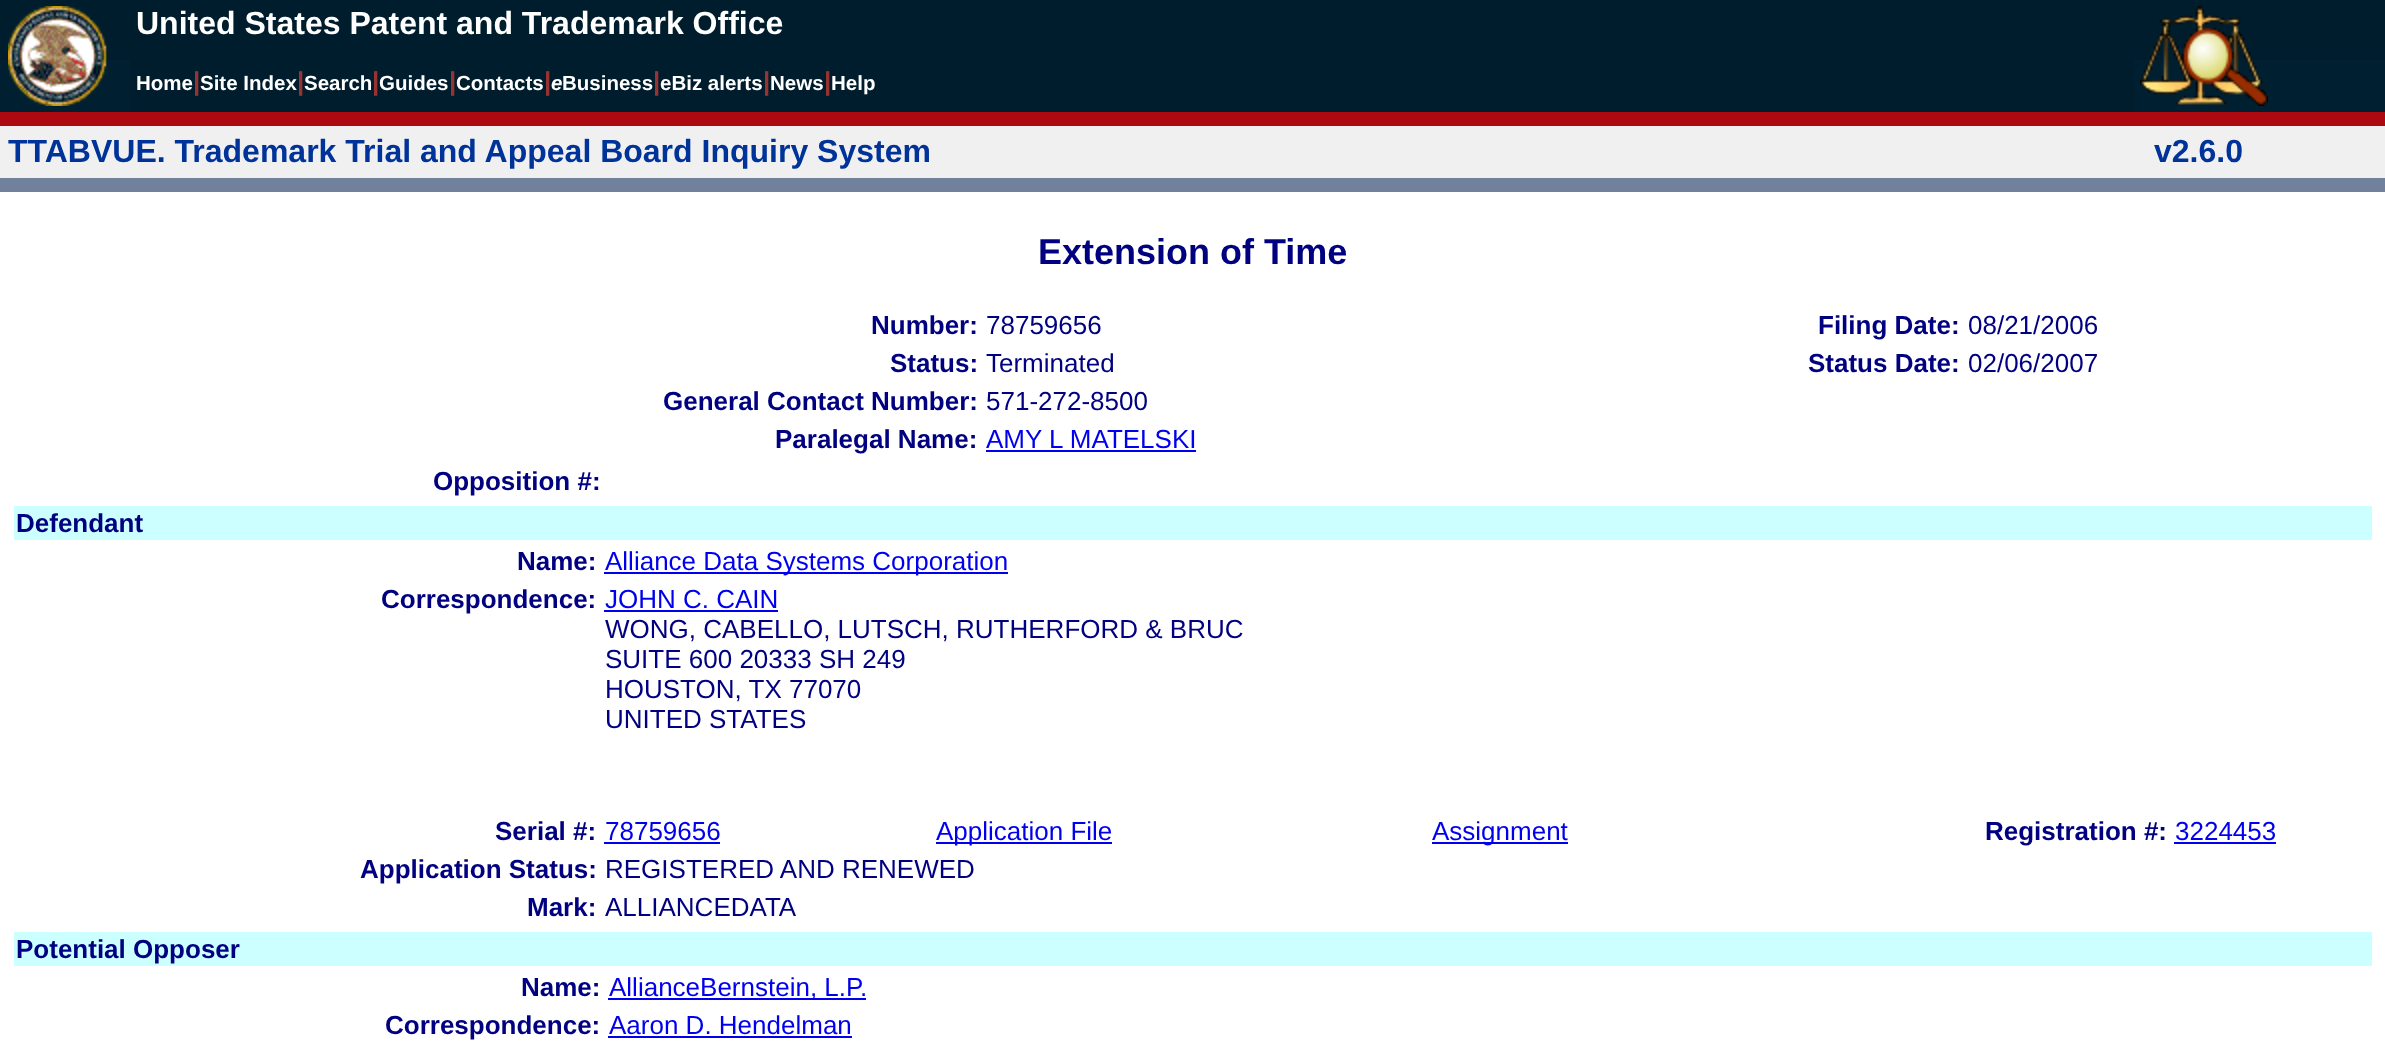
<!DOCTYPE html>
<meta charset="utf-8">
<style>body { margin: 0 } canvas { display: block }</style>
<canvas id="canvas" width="2385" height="1044"></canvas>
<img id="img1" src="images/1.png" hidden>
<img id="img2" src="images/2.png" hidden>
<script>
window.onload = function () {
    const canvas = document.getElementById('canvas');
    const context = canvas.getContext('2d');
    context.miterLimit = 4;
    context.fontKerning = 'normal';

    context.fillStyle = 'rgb(255, 255, 255)';
    context.fillRect(0, 0, 2385, 1044);
    context.fillStyle = 'rgb(0, 29, 45)';
    context.fillRect(0, 0, 2385, 60);
    context.fillStyle = 'rgb(0, 32, 50)';
    context.fillRect(0, 60, 2385, 52);
    context.drawImage(document.getElementById('img1'), 8, 6, 99, 100);
    context.drawImage(document.getElementById('img2'), 2140, 6, 128, 100);
    context.fillStyle = 'rgb(0, 29, 45)';
    context.fillRect(130, 60, 2004, 52);
    context.fillStyle = 'rgb(172, 9, 17)';
    context.fillRect(0, 112, 2385, 14);
    context.fillStyle = 'rgb(240, 240, 240)';
    context.fillRect(0, 126, 2385, 52);
    context.fillStyle = 'rgb(113, 129, 155)';
    context.fillRect(0, 178, 2385, 14);
    context.fillStyle = 'rgb(0, 0, 238)';
    context.fillRect(986, 450, 210, 2);
    context.fillStyle = 'rgb(204, 255, 255)';
    context.fillRect(14, 506, 2358, 34);
    context.fillStyle = 'rgb(0, 0, 238)';
    context.fillRect(604, 572, 404, 2);
    context.fillRect(604, 610, 174, 2);
    context.fillRect(604, 842, 116, 2);
    context.fillRect(936, 842, 176, 2);
    context.fillRect(1432, 842, 136, 2);
    context.fillRect(2174, 842, 102, 2);
    context.fillStyle = 'rgb(204, 255, 255)';
    context.fillRect(14, 932, 2358, 34);
    context.fillStyle = 'rgb(0, 0, 238)';
    context.fillRect(608, 998, 258, 2);
    context.fillRect(608, 1036, 244, 2);
    context.font = 'bold 32px Liberation Sans';
    context.fillStyle = 'rgb(255, 255, 255)';
    context.fillText('United States Patent and Trademark Office', 136, 34);
    context.font = 'bold 20.5px Liberation Sans';
    context.fillText('Home', 136, 90);
    context.font = 'bold 26px Liberation Sans';
    context.fillStyle = 'rgb(153, 51, 51)';
    context.fillText('|', 193, 90);
    context.font = 'bold 20.5px Liberation Sans';
    context.fillStyle = 'rgb(255, 255, 255)';
    context.fillText('Site Index', 200, 90);
    context.font = 'bold 26px Liberation Sans';
    context.fillStyle = 'rgb(153, 51, 51)';
    context.fillText('|', 297, 90);
    context.font = 'bold 20.5px Liberation Sans';
    context.fillStyle = 'rgb(255, 255, 255)';
    context.fillText('Search', 304, 90);
    context.font = 'bold 26px Liberation Sans';
    context.fillStyle = 'rgb(153, 51, 51)';
    context.fillText('|', 372, 90);
    context.font = 'bold 20.5px Liberation Sans';
    context.fillStyle = 'rgb(255, 255, 255)';
    context.fillText('Guides', 379, 90);
    context.font = 'bold 26px Liberation Sans';
    context.fillStyle = 'rgb(153, 51, 51)';
    context.fillText('|', 449, 90);
    context.font = 'bold 20.5px Liberation Sans';
    context.fillStyle = 'rgb(255, 255, 255)';
    context.fillText('Contacts', 456, 90);
    context.font = 'bold 26px Liberation Sans';
    context.fillStyle = 'rgb(153, 51, 51)';
    context.fillText('|', 544, 90);
    context.font = 'italic bold 20.5px Liberation Sans';
    context.fillStyle = 'rgb(255, 255, 255)';
    context.fillText('e', 551, 90);
    context.font = 'bold 20.5px Liberation Sans';
    context.fillText('Business', 562, 90);
    context.font = 'bold 26px Liberation Sans';
    context.fillStyle = 'rgb(153, 51, 51)';
    context.fillText('|', 653, 90);
    context.font = 'bold 20.5px Liberation Sans';
    context.fillStyle = 'rgb(255, 255, 255)';
    context.fillText('eBiz alerts', 660, 90);
    context.font = 'bold 26px Liberation Sans';
    context.fillStyle = 'rgb(153, 51, 51)';
    context.fillText('|', 763, 90);
    context.font = 'bold 20.5px Liberation Sans';
    context.fillStyle = 'rgb(255, 255, 255)';
    context.fillText('News', 770, 90);
    context.font = 'bold 26px Liberation Sans';
    context.fillStyle = 'rgb(153, 51, 51)';
    context.fillText('|', 824, 90);
    context.font = 'bold 20.5px Liberation Sans';
    context.fillStyle = 'rgb(255, 255, 255)';
    context.fillText('Help', 831, 90);
    context.font = 'bold 32px Liberation Sans';
    context.fillStyle = 'rgb(0, 51, 153)';
    context.fillText('TTABVUE. Trademark Trial and Appeal Board Inquiry System', 8, 162);
    context.fillText('v2.6.0', 2154, 162);
    context.font = 'bold 36px Liberation Sans';
    context.fillStyle = 'rgb(0, 0, 128)';
    context.fillText('Extension of Time', 1038, 264);
    context.font = 'bold 26px Liberation Sans';
    context.fillText('Number:', 871, 334);
    context.font = '26px Liberation Sans';
    context.fillText('78759656', 986, 334);
    context.font = 'bold 26px Liberation Sans';
    context.fillText('Filing Date:', 1818, 334);
    context.font = '26px Liberation Sans';
    context.fillText('08/21/2006', 1968, 334);
    context.font = 'bold 26px Liberation Sans';
    context.fillText('Status:', 890, 372);
    context.font = '26px Liberation Sans';
    context.fillText('Terminated', 986, 372);
    context.font = 'bold 26px Liberation Sans';
    context.fillText('Status Date:', 1808, 372);
    context.font = '26px Liberation Sans';
    context.fillText('02/06/2007', 1968, 372);
    context.font = 'bold 26px Liberation Sans';
    context.fillText('General Contact Number:', 663, 410);
    context.font = '26px Liberation Sans';
    context.fillText('571-272-8500', 986, 410);
    context.font = 'bold 26px Liberation Sans';
    context.fillText('Paralegal Name:', 775, 448);
    context.font = '26px Liberation Sans';
    context.fillStyle = 'rgb(0, 0, 238)';
    context.fillText('AMY L MATELSKI', 986, 448);
    context.font = 'bold 26px Liberation Sans';
    context.fillStyle = 'rgb(0, 0, 128)';
    context.fillText('Opposition #:', 433, 490);
    context.fillText('Defendant', 16, 532);
    context.fillText('Name:', 517, 570);
    context.font = '26px Liberation Sans';
    context.fillStyle = 'rgb(0, 0, 238)';
    context.fillText('Alliance Data Systems Corporation', 605, 570);
    context.font = 'bold 26px Liberation Sans';
    context.fillStyle = 'rgb(0, 0, 128)';
    context.fillText('Correspondence:', 381, 608);
    context.font = '26px Liberation Sans';
    context.fillStyle = 'rgb(0, 0, 238)';
    context.fillText('JOHN C. CAIN', 605, 608);
    context.fillStyle = 'rgb(0, 0, 128)';
    context.fillText('WONG, CABELLO, LUTSCH, RUTHERFORD & BRUC', 605, 638);
    context.fillText('SUITE 600 20333 SH 249', 605, 668);
    context.fillText('HOUSTON, TX 77070', 605, 698);
    context.fillText('UNITED STATES', 605, 728);
    context.font = 'bold 26px Liberation Sans';
    context.fillText('Serial #:', 495, 840);
    context.font = '26px Liberation Sans';
    context.fillStyle = 'rgb(0, 0, 238)';
    context.fillText('78759656', 605, 840);
    context.fillText('Application File', 936, 840);
    context.fillText('Assignment', 1432, 840);
    context.font = 'bold 26px Liberation Sans';
    context.fillStyle = 'rgb(0, 0, 128)';
    context.fillText('Registration #:', 1985, 840);
    context.font = '26px Liberation Sans';
    context.fillStyle = 'rgb(0, 0, 238)';
    context.fillText('3224453', 2175, 840);
    context.font = 'bold 26px Liberation Sans';
    context.fillStyle = 'rgb(0, 0, 128)';
    context.fillText('Application Status:', 360, 878);
    context.font = '26px Liberation Sans';
    context.fillText('REGISTERED AND RENEWED', 605, 878);
    context.font = 'bold 26px Liberation Sans';
    context.fillText('Mark:', 527, 916);
    context.font = '26px Liberation Sans';
    context.fillText('ALLIANCEDATA', 605, 916);
    context.font = 'bold 26px Liberation Sans';
    context.fillText('Potential Opposer', 16, 958);
    context.fillText('Name:', 521, 996);
    context.font = '26px Liberation Sans';
    context.fillStyle = 'rgb(0, 0, 238)';
    context.fillText('AllianceBernstein, L.P.', 609, 996);
    context.font = 'bold 26px Liberation Sans';
    context.fillStyle = 'rgb(0, 0, 128)';
    context.fillText('Correspondence:', 385, 1034);
    context.font = '26px Liberation Sans';
    context.fillStyle = 'rgb(0, 0, 238)';
    context.fillText('Aaron D. Hendelman', 609, 1034);
};
</script>
